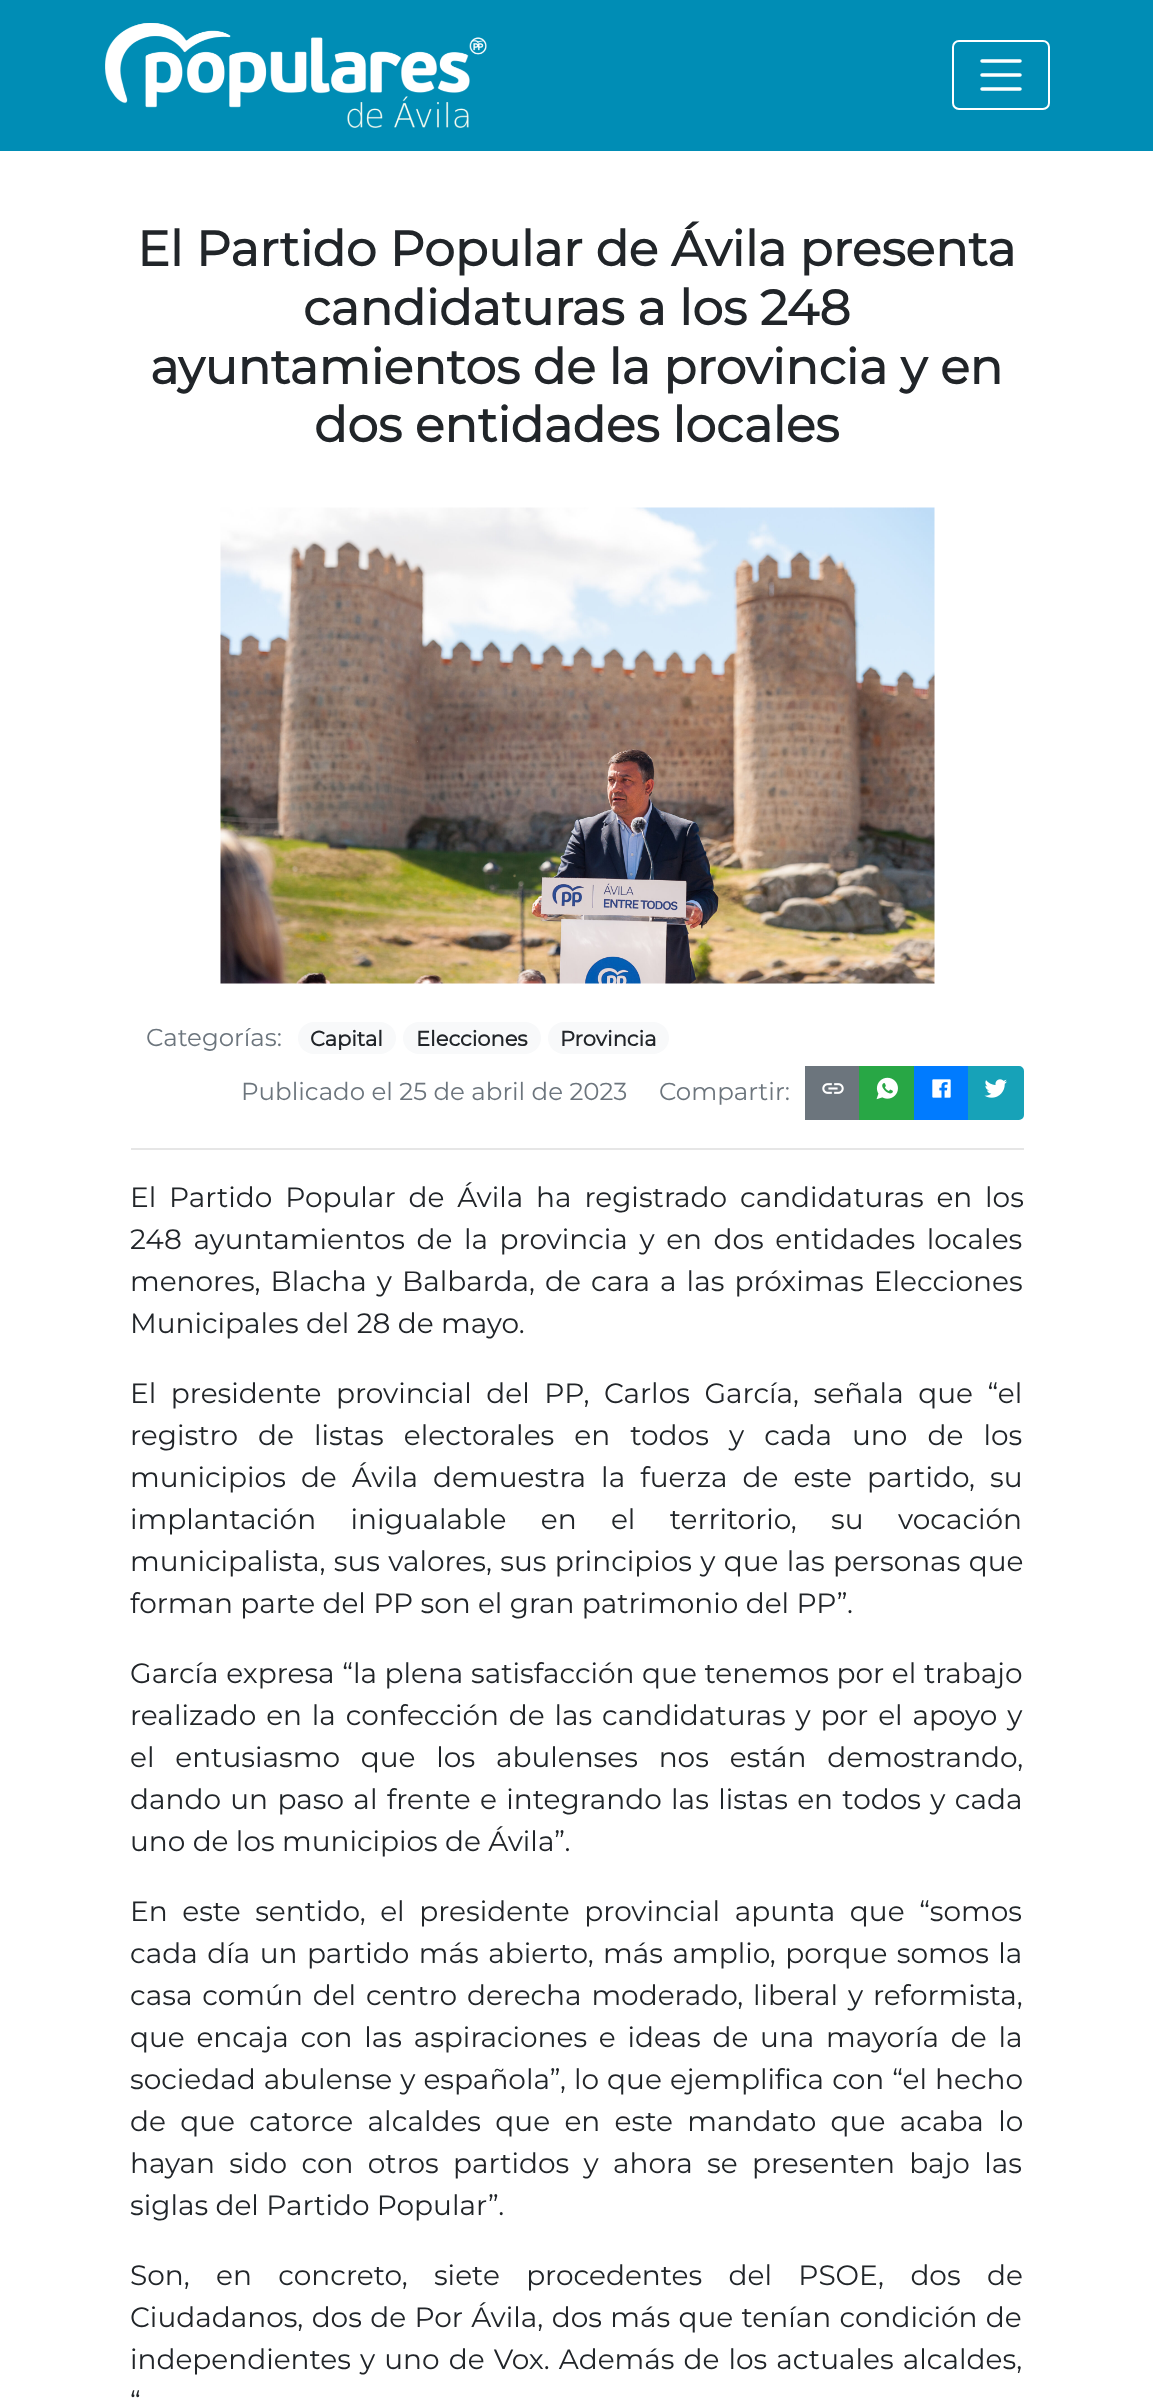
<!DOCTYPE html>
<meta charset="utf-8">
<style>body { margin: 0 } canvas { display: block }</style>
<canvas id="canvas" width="1153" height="2398"></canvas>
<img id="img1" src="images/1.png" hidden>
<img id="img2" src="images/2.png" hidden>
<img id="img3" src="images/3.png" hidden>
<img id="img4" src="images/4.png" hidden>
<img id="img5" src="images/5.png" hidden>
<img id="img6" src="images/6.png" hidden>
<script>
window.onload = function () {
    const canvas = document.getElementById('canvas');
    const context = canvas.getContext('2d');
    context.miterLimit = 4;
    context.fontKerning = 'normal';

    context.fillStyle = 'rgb(255, 255, 255)';
    context.fillRect(0, 0, 1153, 2398);
    context.fillStyle = 'rgb(0, 141, 181)';
    context.fillRect(0, 0, 1153, 151);
    context.drawImage(document.getElementById('img1'), 105, 23, 382, 105);
    context.beginPath();
    context.roundRect(953, 41, 96, 68, 6);
    context.strokeStyle = 'rgb(255, 255, 255)';
    context.lineWidth = 2;
    context.stroke();
    context.beginPath();
    context.moveTo(982, 61);
    context.lineTo(1020, 61);
    context.moveTo(982, 75);
    context.lineTo(1020, 75);
    context.moveTo(982, 89);
    context.lineTo(1020, 89);
    context.lineWidth = 3.5;
    context.lineCap = 'round';
    context.stroke();
    context.drawImage(document.getElementById('img2'), 220, 507, 715, 477);
    context.fillStyle = 'rgb(248, 249, 250)';
    context.beginPath();
    context.roundRect(298, 1022, 98, 32, 16);
    context.fill();
    context.beginPath();
    context.roundRect(403, 1022, 138, 32, 16);
    context.fill();
    context.beginPath();
    context.roundRect(548, 1022, 121, 32, 16);
    context.fill();
    context.fillStyle = 'rgb(108, 117, 125)';
    context.fillRect(805, 1066, 54, 54);
    context.drawImage(document.getElementById('img3'), 822, 1083, 22, 11);
    context.fillStyle = 'rgb(40, 167, 69)';
    context.fillRect(859, 1066, 55, 54);
    context.drawImage(document.getElementById('img4'), 876, 1077, 22, 23);
    context.fillStyle = 'rgb(0, 123, 255)';
    context.fillRect(914, 1066, 54, 54);
    context.drawImage(document.getElementById('img5'), 932, 1079, 19, 19);
    context.fillStyle = 'rgb(23, 162, 184)';
    context.beginPath();
    context.roundRect(969, 1067, 54, 52, [0, 4, 4, 0]);
    context.fill();
    context.strokeStyle = 'rgb(23, 162, 184)';
    context.lineWidth = 2;
    context.stroke();
    context.drawImage(document.getElementById('img6'), 984, 1079, 23, 19);
    context.fillStyle = 'rgb(230, 230, 230)';
    context.fillRect(131, 1148, 893, 2);
    context.font = 'bold 49px Montserrat';
    context.fillStyle = 'rgb(33, 37, 41)';
    context.fillText('El Partido Popular de Ávila presenta', 137, 266);
    context.fillText('candidaturas a los 248', 303, 325);
    context.fillText('ayuntamientos de la provincia y en', 150, 384);
    context.fillText('dos entidades locales', 314, 442);
    context.font = '100 24.5px Montserrat';
    context.fillStyle = 'rgb(108, 117, 125)';
    context.fillText('Categorías:', 146, 1046);
    context.font = 'bold 21px Montserrat';
    context.fillStyle = 'rgb(33, 37, 41)';
    context.fillText('Capital', 310, 1046);
    context.fillText('Elecciones', 416, 1046);
    context.fillText('Provincia', 560, 1046);
    context.font = '100 24.5px Montserrat';
    context.fillStyle = 'rgb(108, 117, 125)';
    context.fillText('Publicado el 25 de abril de 2023', 241, 1100);
    context.fillText('Compartir:', 659, 1100);
    context.wordSpacing = '5.5px';
    context.font = '100 28px Montserrat';
    context.fillStyle = 'rgb(33, 37, 41)';
    context.fillText('El Partido Popular de Ávila ha registrado candidaturas en los', 130, 1207);
    context.wordSpacing = '4.25px';
    context.fillText('248 ayuntamientos de la provincia y en dos entidades locales', 130, 1249);
    context.wordSpacing = '2.75px';
    context.fillText('menores, Blacha y Balbarda, de cara a las próximas Elecciones', 130, 1291);
    context.wordSpacing = '0px';
    context.fillText('Municipales del 28 de mayo.', 130, 1333);
    context.wordSpacing = '7.25px';
    context.fillText('El presidente provincial del PP, Carlos García, señala que “el', 130, 1403);
    context.wordSpacing = '12.75px';
    context.fillText('registro de listas electorales en todos y cada uno de los', 130, 1445);
    context.wordSpacing = '7.75px';
    context.fillText('municipios de Ávila demuestra la fuerza de este partido, su', 130, 1487);
    context.wordSpacing = '27px';
    context.fillText('implantación inigualable en el territorio, su vocación', 130, 1529);
    context.wordSpacing = '1px';
    context.fillText('municipalista, sus valores, sus principios y que las personas que', 130, 1571);
    context.wordSpacing = '0px';
    context.fillText('forman parte del PP son el gran patrimonio del PP”.', 130, 1613);
    context.wordSpacing = '0.25px';
    context.fillText('García expresa “la plena satisfacción que tenemos por el trabajo', 130, 1683);
    context.wordSpacing = '2.5px';
    context.fillText('realizado en la confección de las candidaturas y por el apoyo y', 130, 1725);
    context.wordSpacing = '13.5px';
    context.fillText('el entusiasmo que los abulenses nos están demostrando,', 130, 1767);
    context.wordSpacing = '2px';
    context.fillText('dando un paso al frente e integrando las listas en todos y cada', 130, 1809);
    context.wordSpacing = '0px';
    context.fillText('uno de los municipios de Ávila”.', 130, 1851);
    context.wordSpacing = '7.25px';
    context.fillText('En este sentido, el presidente provincial apunta que “somos', 130, 1921);
    context.wordSpacing = '2.1px';
    context.fillText('cada día un partido más abierto, más amplio, porque somos la', 130, 1963);
    context.wordSpacing = '2.5px';
    context.fillText('casa común del centro derecha moderado, liberal y reformista,', 130, 2005);
    context.wordSpacing = '4.4px';
    context.fillText('que encaja con las aspiraciones e ideas de una mayoría de la', 130, 2047);
    context.wordSpacing = '0.75px';
    context.fillText('sociedad abulense y española”, lo que ejemplifica con “el hecho', 130, 2089);
    context.wordSpacing = '7px';
    context.fillText('de que catorce alcaldes que en este mandato que acaba lo', 130, 2131);
    context.fillText('hayan sido con otros partidos y ahora se presenten bajo las', 130, 2173);
    context.wordSpacing = '0px';
    context.fillText('siglas del Partido Popular”.', 130, 2215);
    context.wordSpacing = '19px';
    context.fillText('Son, en concreto, siete procedentes del PSOE, dos de', 130, 2285);
    context.wordSpacing = '1px';
    context.fillText('Ciudadanos, dos de Por Ávila, dos más que tenían condición de', 130, 2327);
    context.wordSpacing = '1.75px';
    context.fillText('independientes y uno de Vox. Además de los actuales alcaldes,', 130, 2369);
    context.wordSpacing = '1px';
    context.fillText('“', 130, 2411);
};
</script>
